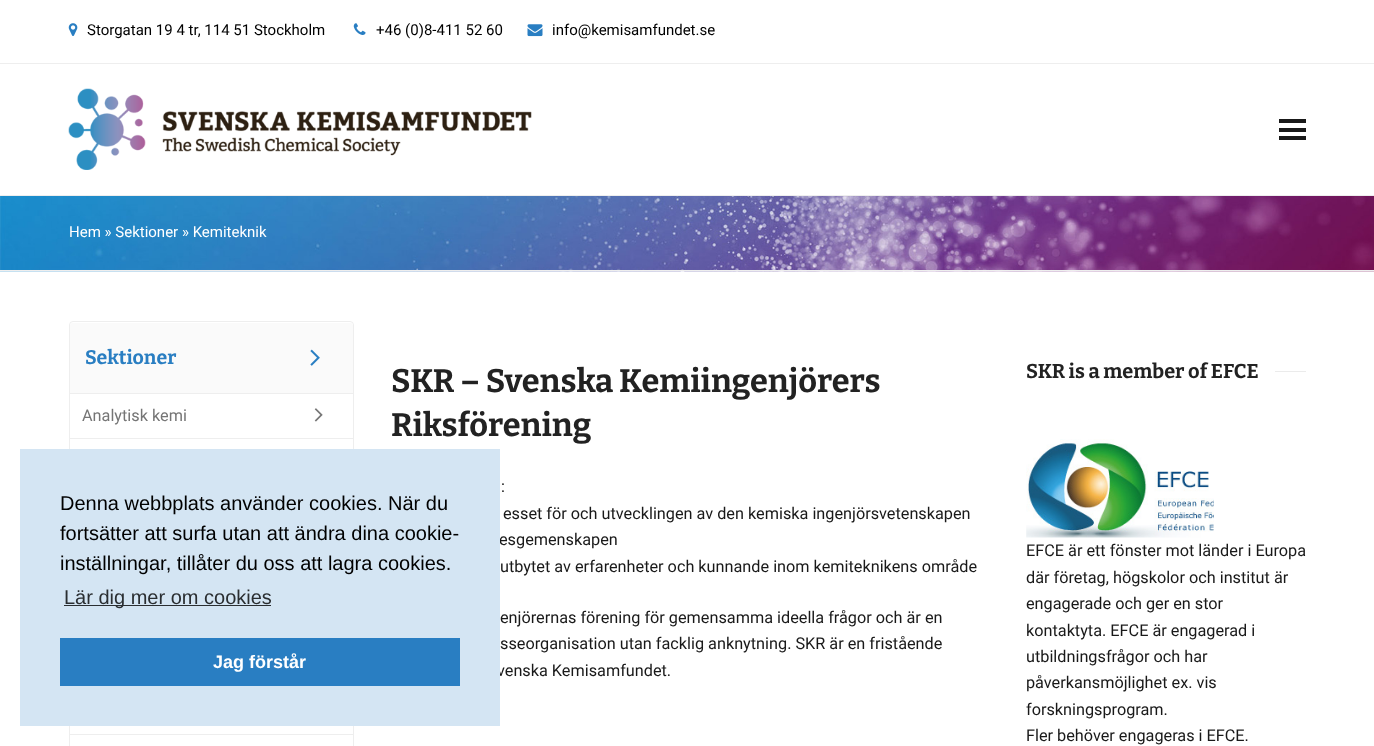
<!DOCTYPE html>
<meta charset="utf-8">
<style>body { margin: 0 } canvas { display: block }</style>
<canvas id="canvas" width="1374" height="746"></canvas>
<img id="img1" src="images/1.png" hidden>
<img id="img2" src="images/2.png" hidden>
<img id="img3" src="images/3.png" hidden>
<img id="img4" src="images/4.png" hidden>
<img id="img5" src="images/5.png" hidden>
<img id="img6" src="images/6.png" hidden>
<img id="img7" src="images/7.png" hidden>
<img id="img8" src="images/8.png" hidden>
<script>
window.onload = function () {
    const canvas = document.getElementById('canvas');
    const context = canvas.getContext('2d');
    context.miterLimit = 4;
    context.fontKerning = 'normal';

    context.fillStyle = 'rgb(255, 255, 255)';
    context.fillRect(0, 0, 1374, 746);
    context.fillStyle = 'rgb(238, 238, 238)';
    context.fillRect(0, 63, 1374, 1);
    context.drawImage(document.getElementById('img1'), 68, 23, 10, 13);
    context.drawImage(document.getElementById('img2'), 353, 23, 13, 12);
    context.drawImage(document.getElementById('img3'), 527, 24, 16, 13);
    context.drawImage(document.getElementById('img4'), 68, 88, 464, 82);
    context.fillStyle = 'rgb(25, 25, 25)';
    context.fillRect(1279, 128, 27, 4);
    context.fillRect(1279, 119, 27, 4);
    context.fillRect(1279, 136, 27, 4);
    context.drawImage(document.getElementById('img5'), 0, 196, 1374, 76);
    context.fillStyle = 'rgb(238, 238, 238)';
    context.fillRect(0, 195, 1374, 1);
    context.fillRect(0, 270, 1374, 1);
    context.beginPath();
    context.roundRect(69.5, 321.5, 284, 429, 3.5);
    context.strokeStyle = 'rgb(238, 238, 238)';
    context.stroke();
    context.fillRect(70, 393, 283, 1);
    context.fillStyle = 'rgb(250, 250, 250)';
    context.beginPath();
    context.roundRect(70, 323, 283, 70, [2.5, 2.5, 0, 0]);
    context.fill();
    context.drawImage(document.getElementById('img6'), 310, 349, 10, 17);
    context.fillStyle = 'rgb(238, 238, 238)';
    context.fillRect(70, 438, 283, 1);
    context.drawImage(document.getElementById('img7'), 314, 408, 9, 14);
    context.fillRect(70, 734, 283, 1);
    context.fillStyle = 'rgb(235, 235, 235)';
    context.fillRect(1275, 371, 31, 1);
    context.drawImage(document.getElementById('img8'), 1026, 439, 188, 99);
    context.font = '15px Roboto';
    context.fillStyle = 'rgb(0, 0, 0)';
    context.fillText('Storgatan 19 4 tr, 114 51 Stockholm', 87, 35);
    context.fillText('+46 (0)8-411 52 60', 376, 35);
    context.fillText('info@kemisamfundet.se', 552, 35);
    context.fillStyle = 'rgb(255, 255, 255)';
    context.fillText('Hem » Sektioner » Kemiteknik', 69, 237);
    context.font = 'bold 19.5px Bitter';
    context.fillStyle = 'rgb(41, 126, 194)';
    context.fillText('Sektioner', 85, 364);
    context.font = '16.25px Roboto';
    context.fillStyle = 'rgb(117, 117, 117)';
    context.fillText('Analytisk kemi', 82, 421);
    context.font = 'bold 32.5px Bitter';
    context.fillStyle = 'rgb(34, 34, 34)';
    context.fillText('SKR – Svenska Kemiingenjörers', 391, 392);
    context.fillText('Riksförening', 391, 436);
    context.font = '16.25px Roboto';
    context.fillStyle = 'rgb(25, 25, 25)';
    context.fillText(':', 501, 492);
    context.fillText('esset för och utvecklingen av den kemiska ingenjörsvetenskapen', 503, 519);
    context.fillText('esgemenskapen', 499, 545);
    context.fillText('utbytet av erfarenheter och kunnande inom kemiteknikens område', 500, 572);
    context.fillText('enjörernas förening för gemensamma ideella frågor och är en', 500, 623);
    context.fillText('sseorganisation utan facklig anknytning. SKR är en fristående', 500, 649);
    context.fillText('venska Kemisamfundet.', 497, 676);
    context.font = 'bold 20px Bitter';
    context.fillStyle = 'rgb(34, 34, 34)';
    context.fillText('SKR is a member of EFCE', 1026, 378);
    context.font = '16.25px Roboto';
    context.fillStyle = 'rgb(25, 25, 25)';
    context.fillText('EFCE är ett fönster mot länder i Europa', 1026, 556);
    context.fillText('där företag, högskolor och institut är', 1026, 583);
    context.fillText('engagerade och ger en stor', 1026, 609);
    context.fillText('kontaktyta. EFCE är engagerad i', 1026, 636);
    context.fillText('utbildningsfrågor och har', 1026, 662);
    context.fillText('påverkansmöjlighet ex. vis', 1026, 688);
    context.fillText('forskningsprogram.', 1026, 715);
    context.fillText('Fler behöver engageras i EFCE.', 1026, 741);
    context.fillStyle = 'rgb(212, 229, 243)';
    context.fillRect(20, 449, 480, 277);
    context.font = '20px Liberation Sans';
    context.fillStyle = 'rgb(0, 0, 0)';
    context.fillText('Denna webbplats använder cookies. När du', 60, 510);
    context.fillText('fortsätter att surfa utan att ändra dina cookie-', 60, 540);
    context.fillText('inställningar, tillåter du oss att lagra cookies.', 60, 570);
    context.fillStyle = 'rgb(42, 46, 49)';
    context.fillRect(64, 605, 207, 1);
    context.fillText('Lär dig mer om cookies', 64, 604);
    context.fillStyle = 'rgb(41, 126, 194)';
    context.fillRect(60, 638, 400, 48);
    context.font = 'bold 18px Liberation Sans';
    context.fillStyle = 'rgb(255, 255, 255)';
    context.fillText('Jag förstår', 213, 668);
};
</script>
